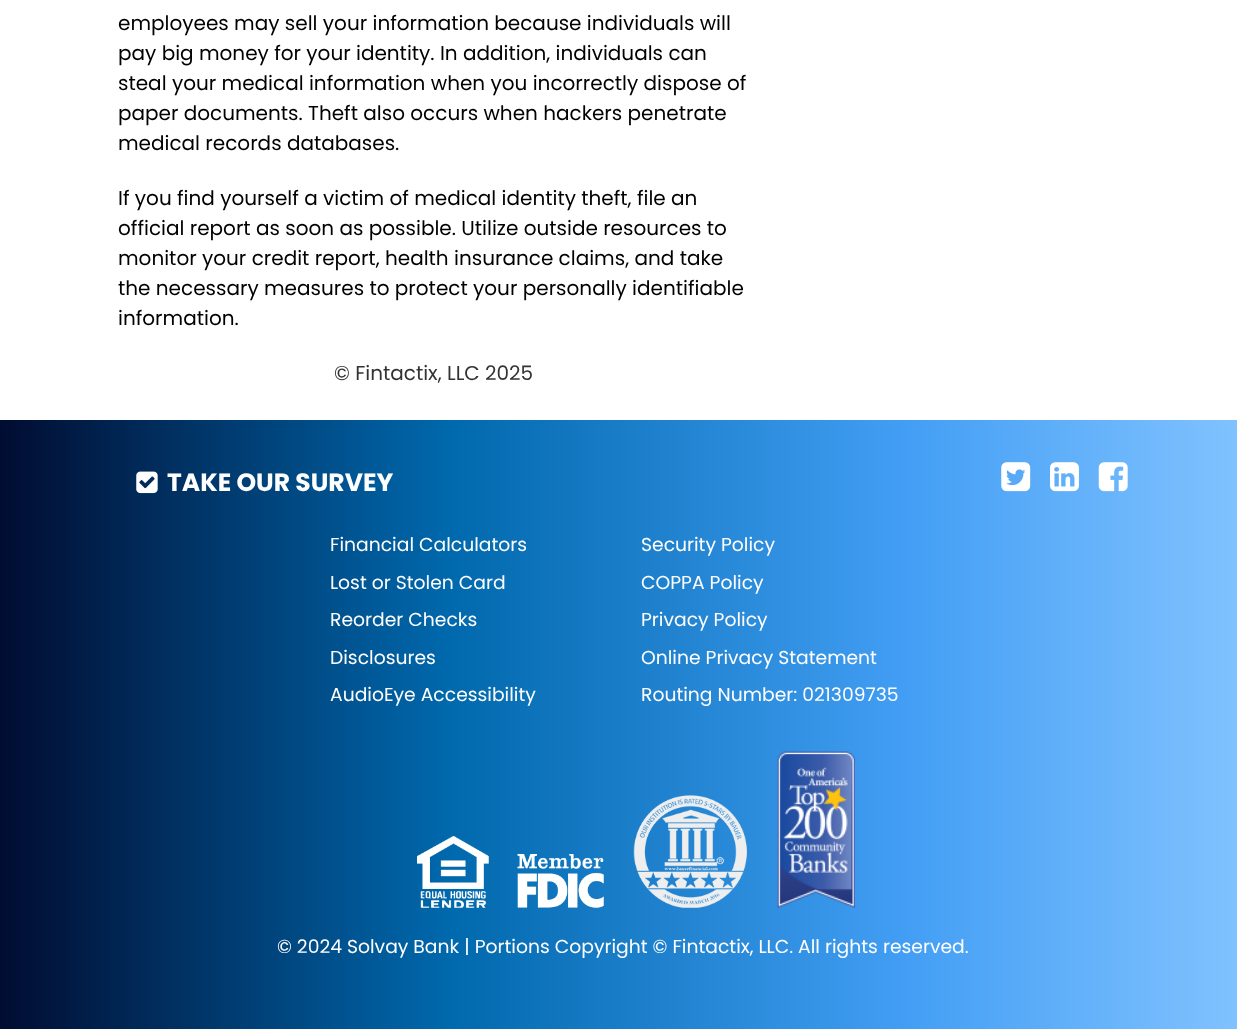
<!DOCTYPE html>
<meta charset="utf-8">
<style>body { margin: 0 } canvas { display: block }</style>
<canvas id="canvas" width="1237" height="1029"></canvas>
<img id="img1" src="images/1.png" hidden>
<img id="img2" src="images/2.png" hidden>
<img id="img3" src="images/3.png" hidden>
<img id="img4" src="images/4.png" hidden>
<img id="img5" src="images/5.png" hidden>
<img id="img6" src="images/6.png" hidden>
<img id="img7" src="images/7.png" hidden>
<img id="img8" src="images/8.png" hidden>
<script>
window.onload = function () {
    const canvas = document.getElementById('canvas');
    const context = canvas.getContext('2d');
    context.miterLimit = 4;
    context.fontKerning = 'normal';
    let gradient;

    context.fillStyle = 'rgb(255, 255, 255)';
    context.fillRect(0, 0, 1237, 1029);
    gradient = context.createLinearGradient(0, 725, 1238, 725);
    gradient.addColorStop(0, 'rgb(1, 12, 49)');
    gradient.addColorStop(0.36, 'rgb(0, 104, 172)');
    gradient.addColorStop(0.73, 'rgb(66, 158, 244)');
    gradient.addColorStop(1, 'rgb(128, 194, 255)');
    context.fillStyle = gradient;
    context.fillRect(0, 420, 1237, 609);
    context.drawImage(document.getElementById('img1'), 136, 471, 22, 23);
    context.drawImage(document.getElementById('img2'), 1001, 462, 30, 30);
    context.drawImage(document.getElementById('img3'), 1050, 462, 29, 30);
    context.drawImage(document.getElementById('img4'), 1098, 462, 30, 30);
    context.drawImage(document.getElementById('img5'), 417, 836, 72, 72);
    context.drawImage(document.getElementById('img6'), 517, 854, 87, 54);
    context.drawImage(document.getElementById('img7'), 633, 795, 114, 113);
    context.drawImage(document.getElementById('img8'), 777, 751, 78, 157);
    context.font = '20px Poppins';
    context.fillStyle = 'rgb(0, 0, 0)';
    context.fillText('employees may sell your information because individuals will', 118, 30);
    context.fillText('pay big money for your identity. In addition, individuals can', 118, 60);
    context.fillText('steal your medical information when you incorrectly dispose of', 118, 90);
    context.fillText('paper documents. Theft also occurs when hackers penetrate', 118, 120);
    context.fillText('medical records databases.', 118, 150);
    context.fillText('If you find yourself a victim of medical identity theft, file an', 118, 205);
    context.fillText('official report as soon as possible. Utilize outside resources to', 118, 235);
    context.fillText('monitor your credit report, health insurance claims, and take', 118, 265);
    context.fillText('the necessary measures to protect your personally identifiable', 118, 295);
    context.fillText('information.', 118, 325);
    context.fillStyle = 'rgb(51, 51, 51)';
    context.fillText('© Fintactix, LLC 2025', 334, 380);
    context.font = 'bold 25px Poppins';
    context.fillStyle = 'rgb(255, 255, 255)';
    context.fillText('TAKE OUR SURVEY', 167, 491);
    context.font = '18.75px Poppins';
    context.fillText('Financial Calculators', 330, 551);
    context.fillText('Security Policy', 641, 551);
    context.fillText('Lost or Stolen Card', 330, 589);
    context.fillText('COPPA Policy', 641, 589);
    context.fillText('Reorder Checks', 330, 626);
    context.fillText('Privacy Policy', 641, 626);
    context.fillText('Disclosures', 330, 664);
    context.fillText('Online Privacy Statement', 641, 664);
    context.fillText('AudioEye Accessibility', 330, 701);
    context.fillText('Routing Number: 021309735', 641, 701);
    context.fillText('© 2024 Solvay Bank | Portions Copyright © Fintactix, LLC. All rights reserved.', 277, 953);
};
</script>
